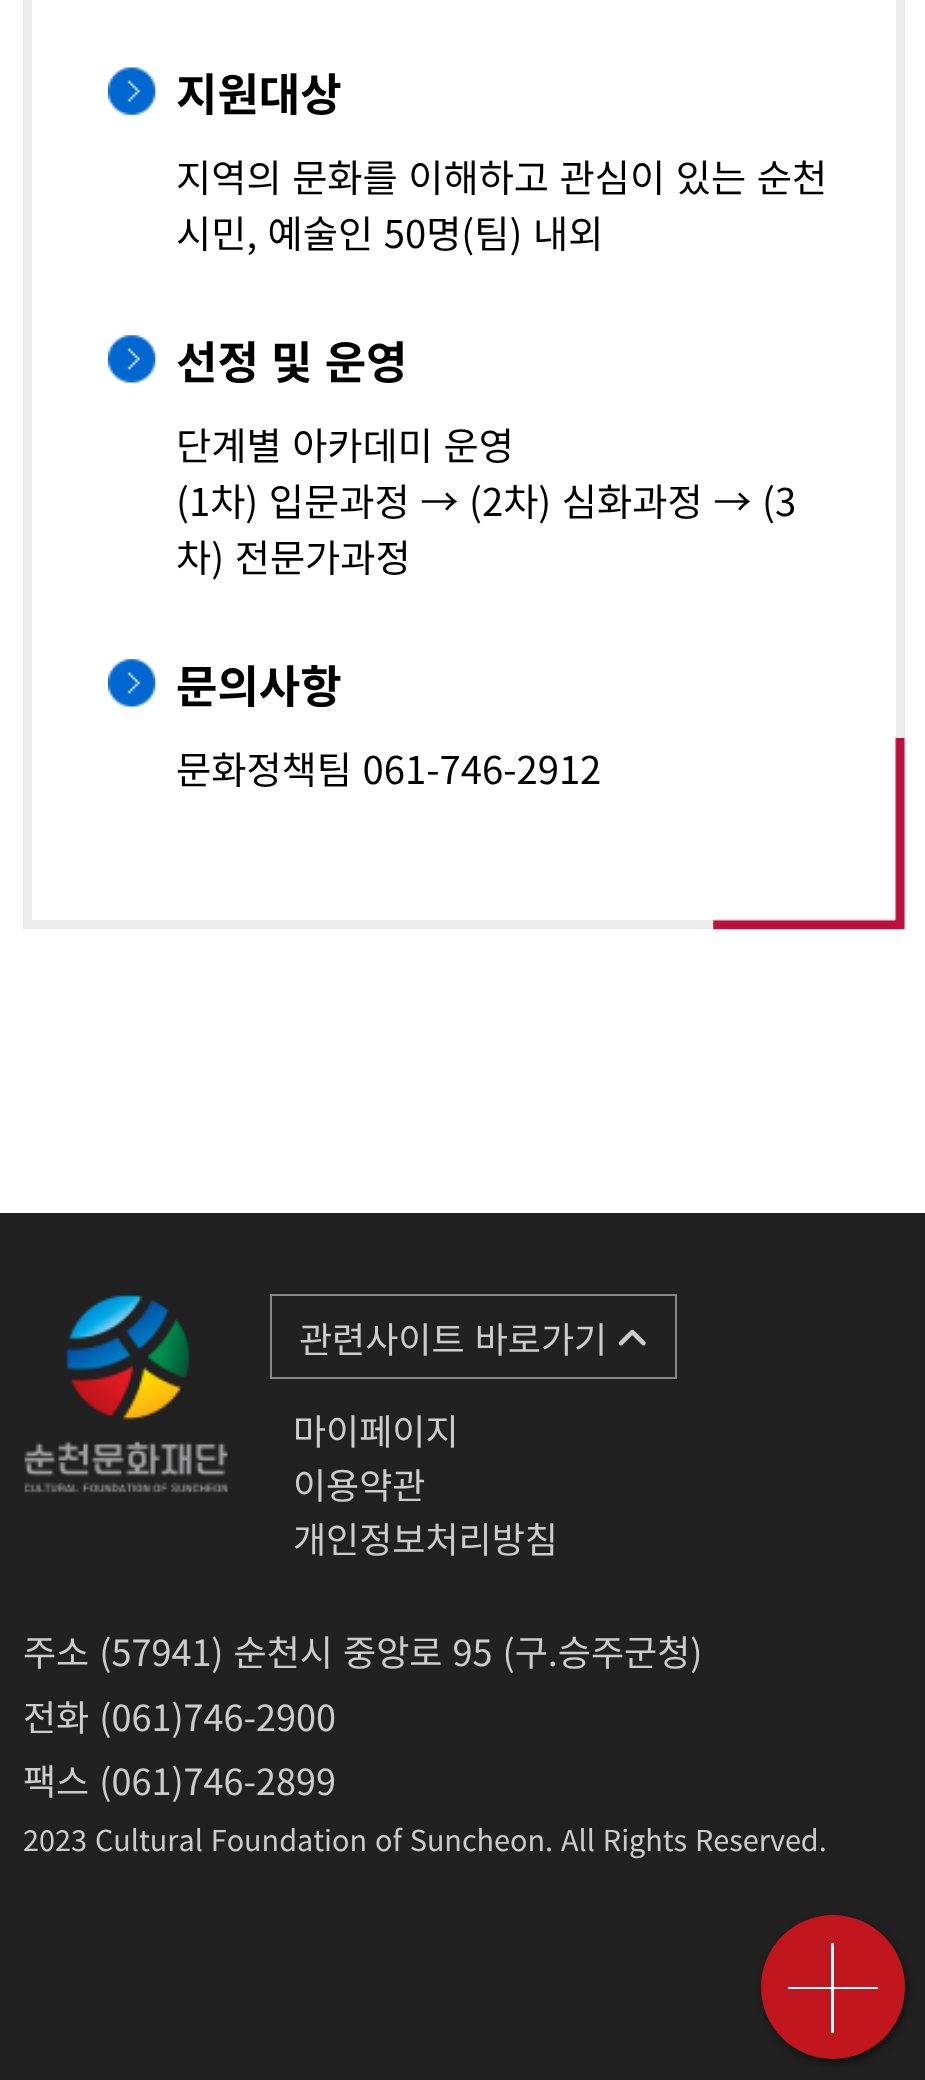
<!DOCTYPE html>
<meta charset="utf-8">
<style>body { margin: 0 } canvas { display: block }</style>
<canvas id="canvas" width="925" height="2080"></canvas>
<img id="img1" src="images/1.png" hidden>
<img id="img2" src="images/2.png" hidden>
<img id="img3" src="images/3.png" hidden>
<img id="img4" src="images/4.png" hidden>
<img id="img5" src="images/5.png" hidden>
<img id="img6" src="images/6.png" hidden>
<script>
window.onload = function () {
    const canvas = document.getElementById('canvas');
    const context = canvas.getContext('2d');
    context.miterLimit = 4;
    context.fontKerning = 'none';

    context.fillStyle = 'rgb(33, 33, 33)';
    context.fillRect(0, 0, 925, 2080);
    context.fillStyle = 'rgb(255, 255, 255)';
    context.fillRect(0, 0, 925, 1213);
    context.strokeStyle = 'rgb(235, 235, 235)';
    context.lineWidth = 9;
    context.strokeRect(27.5, -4.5, 873, 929);
    context.drawImage(document.getElementById('img1'), 713, 738, 192, 192);
    context.drawImage(document.getElementById('img2'), 108, 67, 48, 48);
    context.drawImage(document.getElementById('img3'), 108, 335, 48, 48);
    context.drawImage(document.getElementById('img4'), 108, 659, 48, 48);
    context.drawImage(document.getElementById('img5'), 24, 1294, 204, 199);
    context.strokeStyle = 'rgb(136, 136, 136)';
    context.lineWidth = 2;
    context.strokeRect(271, 1295, 405, 83);
    context.drawImage(document.getElementById('img6'), 618, 1329, 28, 17);
    context.fillStyle = 'rgba(0, 0, 0, 0.5)';
    context.filter = 'blur(4.5px)';
    context.beginPath();
    context.roundRect(763, 1919, 144, 144, 72);
    context.fill();
    context.filter = 'none';
    context.fillStyle = 'rgb(193, 22, 29)';
    context.beginPath();
    context.arc(833, 1987, 72, 0, 2 * Math.PI);
    context.fill();
    context.fillStyle = 'rgb(255, 255, 255)';
    context.fillRect(788, 1987, 90, 2);
    context.fillRect(831, 1943, 3, 90);
    context.font = 'bold 45px Noto Sans KR';
    context.fillStyle = 'rgb(0, 0, 0)';
    context.fillText('지원대상', 176, 111);
    context.wordSpacing = '2px';
    context.font = '38.25px Noto Sans KR';
    context.fillText('지역의 문화를 이해하고 관심이 있는 순천', 176, 192);
    context.fillText('시민, 예술인 50명(팀) 내외', 176, 248);
    context.font = 'bold 45px Noto Sans KR';
    context.fillText('선정 및 운영', 176, 379);
    context.font = '38.25px Noto Sans KR';
    context.fillText('단계별 아카데미 운영', 176, 460);
    context.fillText('(1차) 입문과정 → (2차) 심화과정 → (3', 176, 516);
    context.fillText('차) 전문가과정', 176, 572);
    context.wordSpacing = '0px';
    context.font = 'bold 45px Noto Sans KR';
    context.fillText('문의사항', 176, 703);
    context.wordSpacing = '2px';
    context.font = '38.25px Noto Sans KR';
    context.fillText('문화정책팀 061-746-2912', 176, 784);
    context.font = '36px Noto Sans KR';
    context.fillStyle = 'rgb(204, 204, 204)';
    context.fillText('관련사이트 바로가기', 299, 1353);
    context.wordSpacing = '0px';
    context.fillText('마이페이지', 293, 1445);
    context.fillText('이용약관', 293, 1499);
    context.fillText('개인정보처리방침', 293, 1553);
    context.wordSpacing = '2px';
    context.fillText('주소 (57941) 순천시 중앙로 95 (구.승주군청)', 23, 1666);
    context.fillText('전화 (061)746-2900', 23, 1731);
    context.fillText('팩스 (061)746-2899', 23, 1795);
    context.wordSpacing = '1.5px';
    context.font = '28.8px Noto Sans KR';
    context.fillText('2023 Cultural Foundation of Suncheon. All Rights Reserved.', 23, 1851);
};
</script>
